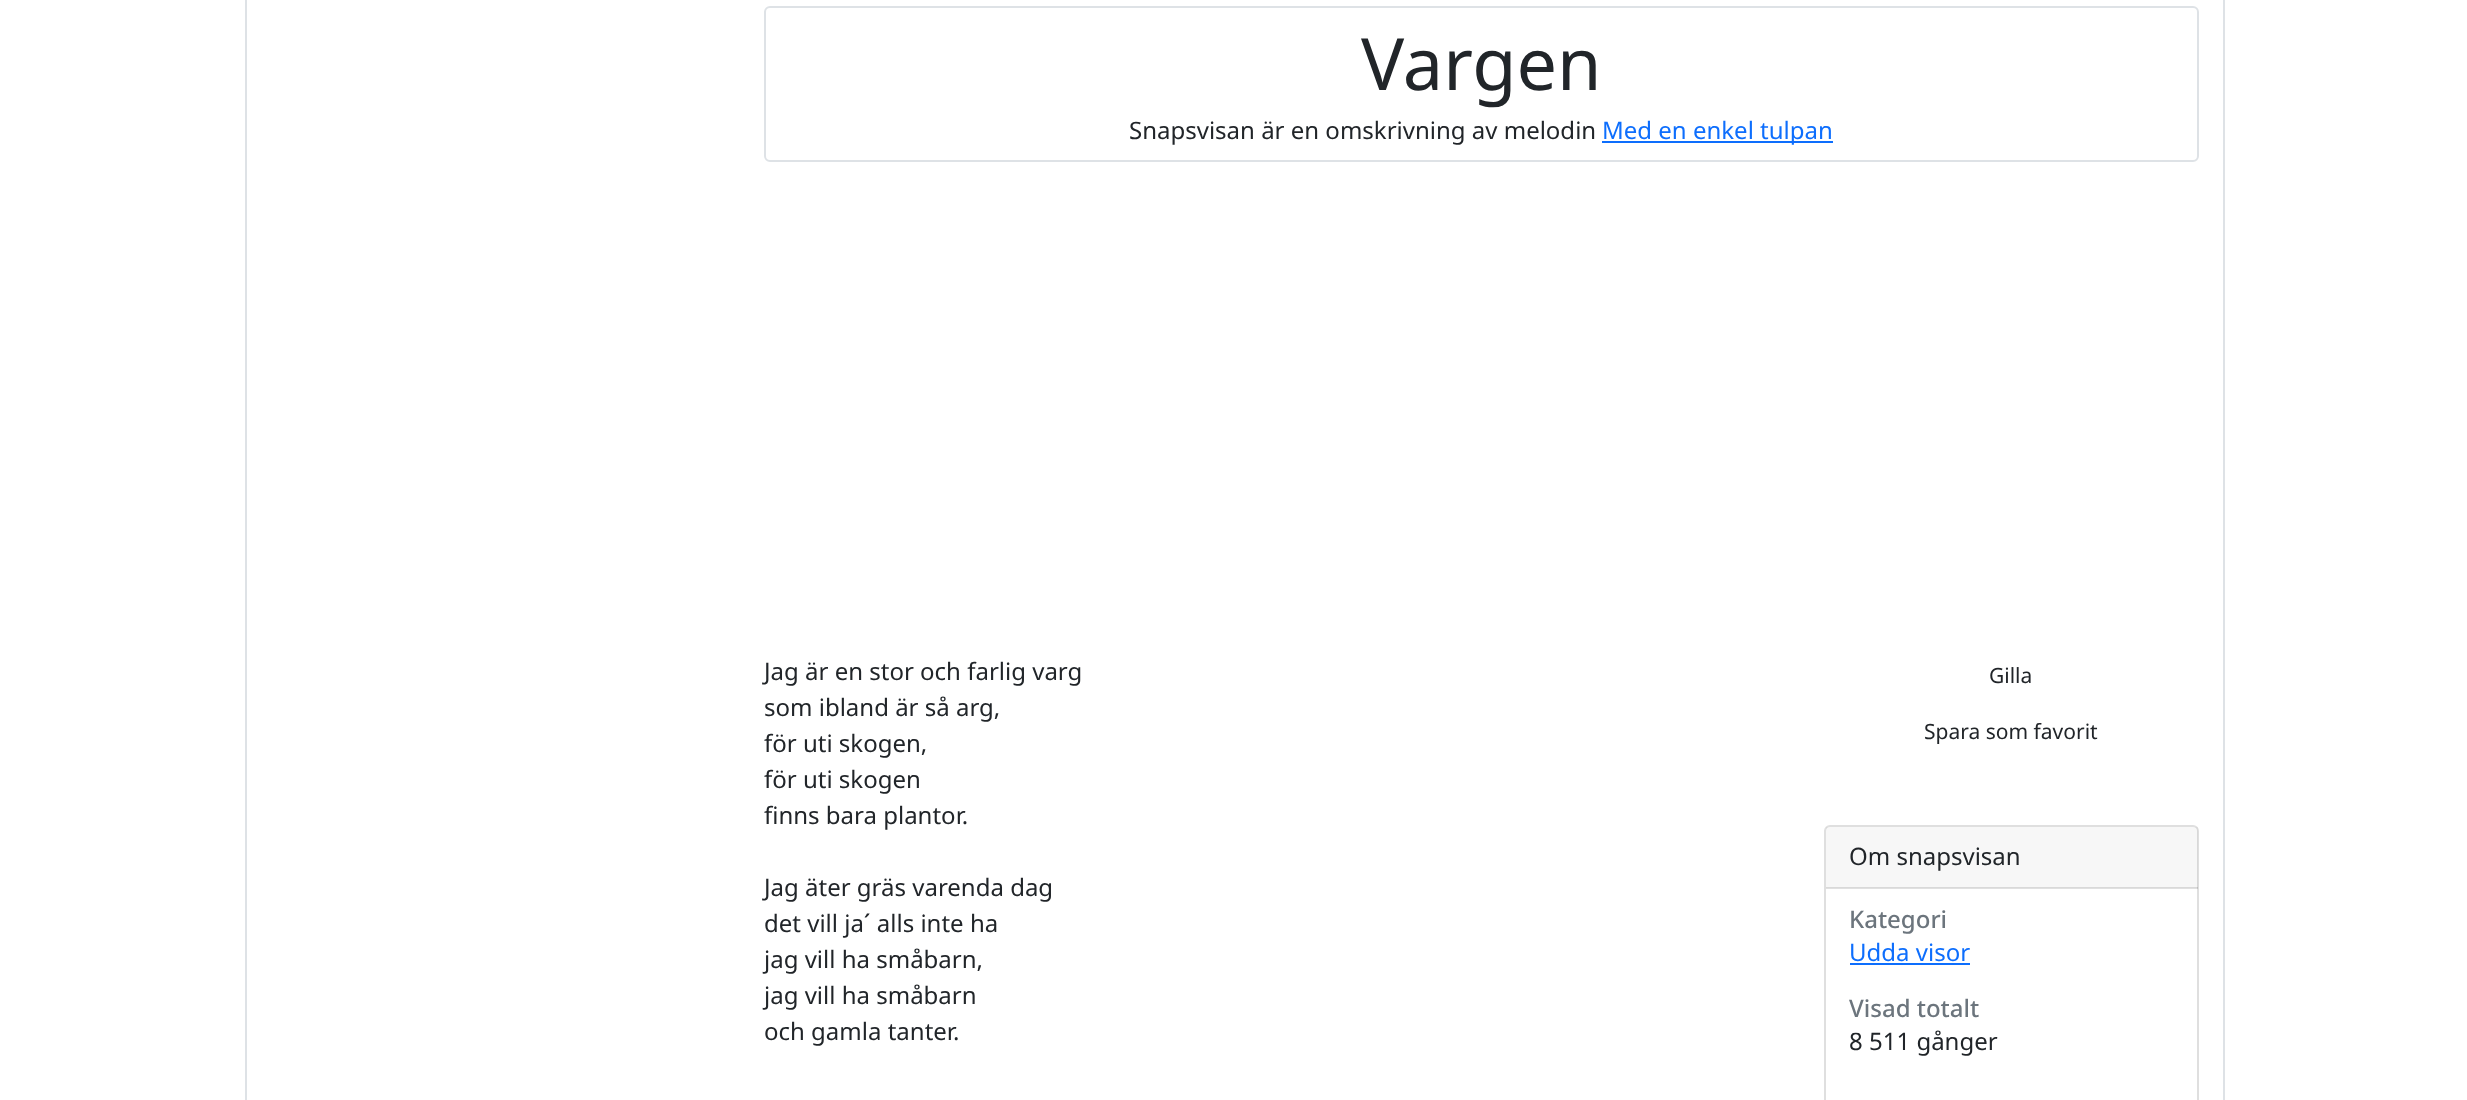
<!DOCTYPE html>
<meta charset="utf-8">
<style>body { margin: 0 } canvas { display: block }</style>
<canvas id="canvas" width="2467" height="1100"></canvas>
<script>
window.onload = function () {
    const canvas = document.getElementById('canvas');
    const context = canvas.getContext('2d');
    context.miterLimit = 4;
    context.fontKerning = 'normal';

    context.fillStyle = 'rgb(255, 255, 255)';
    context.fillRect(0, 0, 2467, 1100);
    context.fillStyle = 'rgb(222, 226, 230)';
    context.fillRect(2223, 0, 2, 1100);
    context.fillRect(245, 0, 2, 1100);
    context.beginPath();
    context.roundRect(765, 7, 1433, 154, 5);
    context.strokeStyle = 'rgb(222, 226, 230)';
    context.lineWidth = 2;
    context.stroke();
    context.fillStyle = 'rgb(13, 110, 253)';
    context.fillRect(1602, 141, 231, 2);
    context.beginPath();
    context.roundRect(1825, 826, 373, 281, 5);
    context.strokeStyle = 'rgb(223, 223, 223)';
    context.stroke();
    context.fillStyle = 'rgba(0, 0, 0, 0.03)';
    context.fillRect(1826, 827, 372, 61);
    context.fillStyle = 'rgba(0, 0, 0, 0.12)';
    context.fillRect(1826, 887, 372, 2);
    context.fillStyle = 'rgb(13, 110, 253)';
    context.fillRect(1850, 963, 120, 2);
    context.font = '72px Noto Sans';
    context.fillStyle = 'rgb(33, 37, 41)';
    context.fillText('Vargen', 1361, 90);
    context.font = '24px Noto Sans';
    context.fillText('Snapsvisan är en omskrivning av melodin', 1129, 139);
    context.fillStyle = 'rgb(13, 110, 253)';
    context.fillText('Med en enkel tulpan', 1602, 139);
    context.fillStyle = 'rgb(33, 37, 41)';
    context.fillText('Jag är en stor och farlig varg', 764, 680);
    context.fillText('som ibland är så arg,', 764, 716);
    context.fillText('för uti skogen,', 764, 752);
    context.fillText('för uti skogen', 764, 788);
    context.fillText('finns bara plantor.', 764, 824);
    context.fillText('Jag äter gräs varenda dag', 764, 896);
    context.fillText('det vill ja´ alls inte ha', 764, 932);
    context.fillText('jag vill ha småbarn,', 764, 968);
    context.fillText('jag vill ha småbarn', 764, 1004);
    context.fillText('och gamla tanter.', 764, 1040);
    context.font = '21px Noto Sans';
    context.fillText('Gilla', 1989, 683);
    context.fillText('Spara som favorit', 1924, 739);
    context.font = '24px Noto Sans';
    context.fillText('Om snapsvisan', 1849, 865);
    context.font = '500 24px Noto Sans';
    context.fillStyle = 'rgb(108, 117, 125)';
    context.fillText('Kategori', 1849, 928);
    context.font = '24px Noto Sans';
    context.fillStyle = 'rgb(13, 110, 253)';
    context.fillText('Udda visor', 1849, 961);
    context.font = '500 24px Noto Sans';
    context.fillStyle = 'rgb(108, 117, 125)';
    context.fillText('Visad totalt', 1849, 1017);
    context.font = '24px Noto Sans';
    context.fillStyle = 'rgb(33, 37, 41)';
    context.fillText('8 511 gånger', 1849, 1050);
};
</script>
